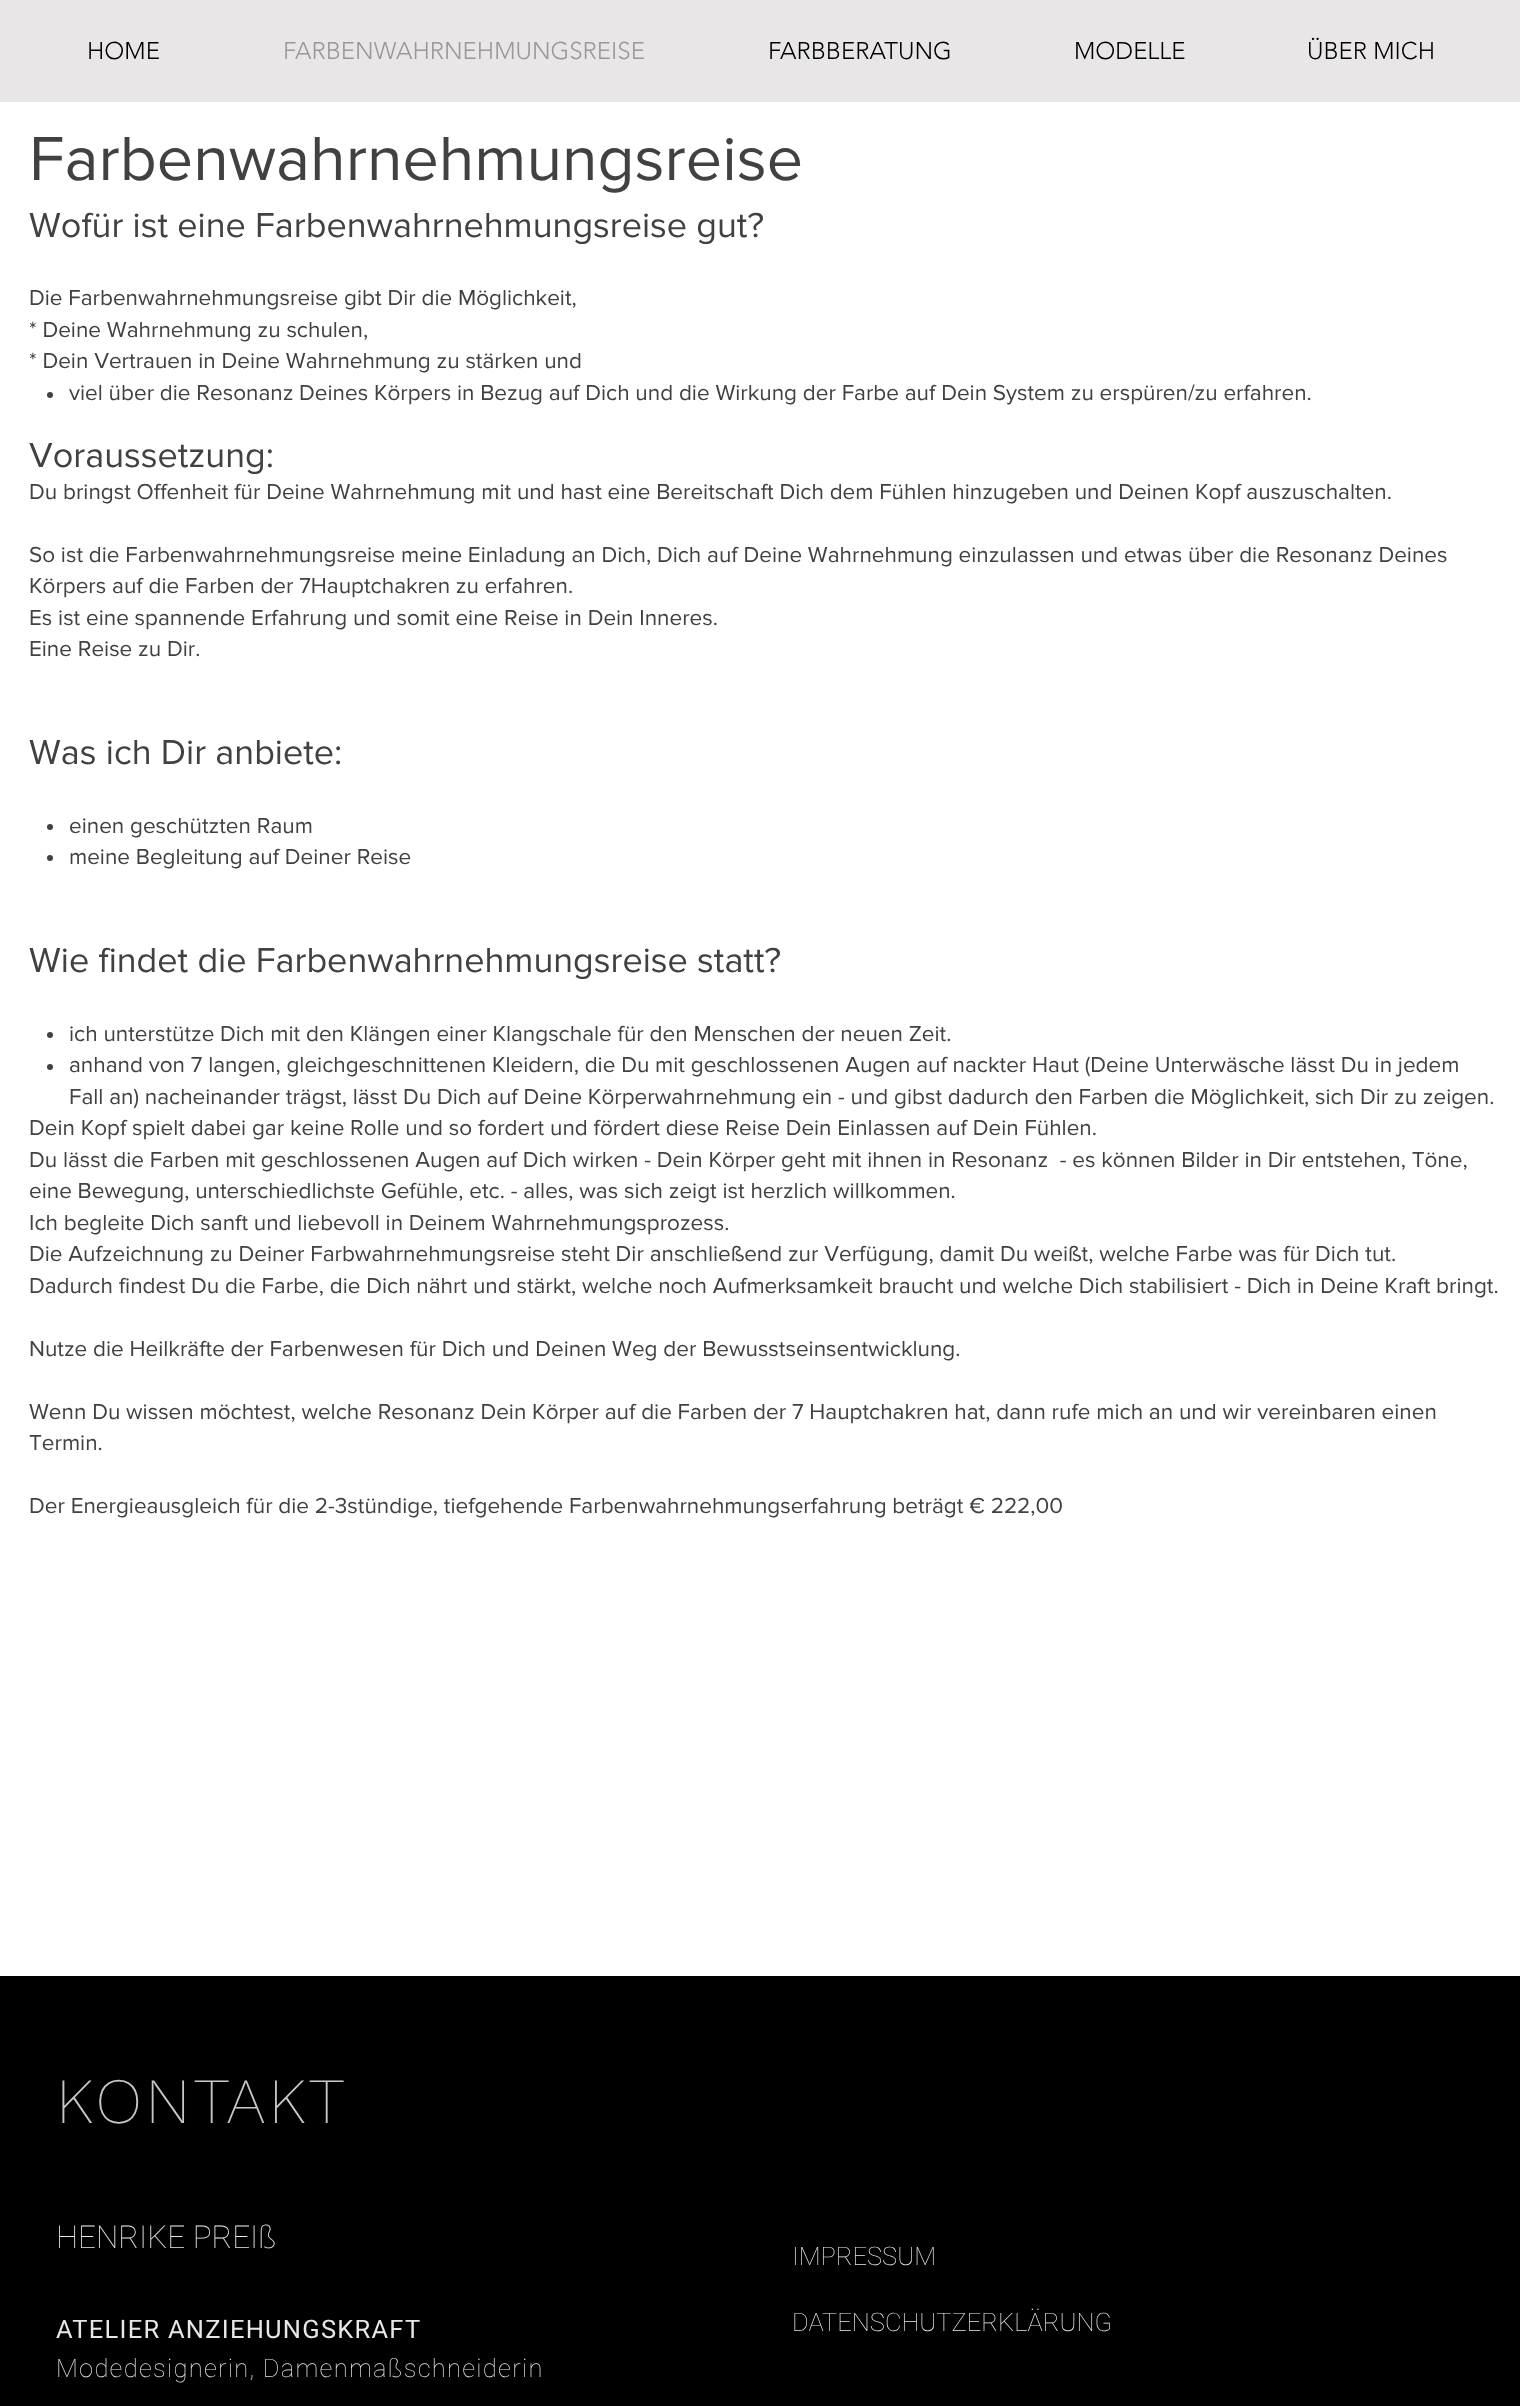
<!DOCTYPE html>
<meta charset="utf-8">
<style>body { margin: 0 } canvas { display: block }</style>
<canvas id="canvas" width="1520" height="2406"></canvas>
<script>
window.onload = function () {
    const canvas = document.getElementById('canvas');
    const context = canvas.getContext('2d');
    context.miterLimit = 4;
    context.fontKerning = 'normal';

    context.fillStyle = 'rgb(255, 255, 255)';
    context.fillRect(0, 0, 1520, 2406);
    context.fillStyle = 'rgb(232, 230, 230)';
    context.fillRect(0, 0, 1520, 102);
    context.fillStyle = 'rgb(65, 65, 65)';
    context.beginPath();
    context.arc(50, 395, 3, 0, 2 * Math.PI);
    context.fill();
    context.beginPath();
    context.arc(50, 827, 3, 0, 2 * Math.PI);
    context.fill();
    context.beginPath();
    context.arc(50, 858, 3, 0, 2 * Math.PI);
    context.fill();
    context.beginPath();
    context.arc(50, 1035, 3, 0, 2 * Math.PI);
    context.fill();
    context.beginPath();
    context.arc(50, 1067, 3, 0, 2 * Math.PI);
    context.fill();
    context.fillStyle = 'rgb(0, 0, 0)';
    context.fillRect(0, 1976, 1520, 430);
    context.font = '300 24px "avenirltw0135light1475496"';
    context.fillText('HOME', 87, 59);
    context.fillStyle = 'rgb(153, 153, 151)';
    context.fillText('FARBENWAHRNEHMUNGSREISE', 283, 59);
    context.fillStyle = 'rgb(0, 0, 0)';
    context.fillText('FARBBERATUNG', 768, 59);
    context.fillText('MODELLE', 1074, 59);
    context.fillText('ÜBER MICH', 1307, 59);
    context.font = '64.5px "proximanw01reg"';
    context.fillStyle = 'rgb(65, 65, 65)';
    context.fillText('Farbenwahrnehmungsreise', 29, 180);
    context.font = '36px "proximanw01reg"';
    context.fillText('Wofür ist eine Farbenwahrnehmungsreise gut?', 29, 237);
    context.font = '22.5px "proximanw01reg"';
    context.fillText('Die Farbenwahrnehmungsreise gibt Dir die Möglichkeit,', 29, 305);
    context.fillText('* Deine Wahrnehmung zu schulen,', 29, 337);
    context.fillText('* Dein Vertrauen in Deine Wahrnehmung zu stärken und', 29, 368);
    context.fillText('viel über die Resonanz Deines Körpers in Bezug auf Dich und die Wirkung der Farbe auf Dein System zu erspüren/zu erfahren.', 69, 400);
    context.font = '36px "proximanw01reg"';
    context.fillText('Voraussetzung:', 29, 467);
    context.font = '22.5px "proximanw01reg"';
    context.fillText('Du bringst Offenheit für Deine Wahrnehmung mit und hast eine Bereitschaft Dich dem Fühlen hinzugeben und Deinen Kopf auszuschalten.', 29, 499);
    context.fillText('So ist die Farbenwahrnehmungsreise meine Einladung an Dich, Dich auf Deine Wahrnehmung einzulassen und etwas über die Resonanz Deines', 29, 562);
    context.fillText('Körpers auf die Farben der 7Hauptchakren zu erfahren.', 29, 593);
    context.fillText('Es ist eine spannende Erfahrung und somit eine Reise in Dein Inneres.', 29, 625);
    context.fillText('Eine Reise zu Dir.', 29, 656);
    context.font = '36px "proximanw01reg"';
    context.fillText('Was ich Dir anbiete:', 29, 764);
    context.font = '22.5px "proximanw01reg"';
    context.fillText('einen geschützten Raum', 69, 833);
    context.fillText('meine Begleitung auf Deiner Reise', 69, 864);
    context.font = '36px "proximanw01reg"';
    context.fillText('Wie findet die Farbenwahrnehmungsreise statt?', 29, 972);
    context.font = '22.5px "proximanw01reg"';
    context.fillText('ich unterstütze Dich mit den Klängen einer Klangschale für den Menschen der neuen Zeit.', 69, 1041);
    context.fillText('anhand von 7 langen, gleichgeschnittenen Kleidern, die Du mit geschlossenen Augen auf nackter Haut (Deine Unterwäsche lässt Du in jedem', 69, 1072);
    context.fillText('Fall an) nacheinander trägst, lässt Du Dich auf Deine Körperwahrnehmung ein - und gibst dadurch den Farben die Möglichkeit, sich Dir zu zeigen.', 69, 1104);
    context.fillText('Dein Kopf spielt dabei gar keine Rolle und so fordert und fördert diese Reise Dein Einlassen auf Dein Fühlen.', 29, 1135);
    context.fillText('Du lässt die Farben mit geschlossenen Augen auf Dich wirken - Dein Körper geht mit ihnen in Resonanz  - es können Bilder in Dir entstehen, Töne,', 29, 1167);
    context.fillText('eine Bewegung, unterschiedlichste Gefühle, etc. - alles, was sich zeigt ist herzlich willkommen.', 29, 1198);
    context.fillText('Ich begleite Dich sanft und liebevoll in Deinem Wahrnehmungsprozess.', 29, 1230);
    context.fillText('Die Aufzeichnung zu Deiner Farbwahrnehmungsreise steht Dir anschließend zur Verfügung, damit Du weißt, welche Farbe was für Dich tut.', 29, 1261);
    context.fillText('Dadurch findest Du die Farbe, die Dich nährt und stärkt, welche noch Aufmerksamkeit braucht und welche Dich stabilisiert - Dich in Deine Kraft bringt.', 29, 1293);
    context.fillText('Nutze die Heilkräfte der Farbenwesen für Dich und Deinen Weg der Bewusstseinsentwicklung.', 29, 1356);
    context.fillText('Wenn Du wissen möchtest, welche Resonanz Dein Körper auf die Farben der 7 Hauptchakren hat, dann rufe mich an und wir vereinbaren einen', 29, 1419);
    context.fillText('Termin.', 29, 1450);
    context.fillText('Der Energieausgleich für die 2-3stündige, tiefgehende Farbenwahrnehmungserfahrung beträgt € 222,00', 29, 1513);
    context.letterSpacing = '3.25px';
    context.font = '200 64.5px Work Sans';
    context.fillStyle = 'rgb(199, 199, 199)';
    context.fillText('KONTAKT', 56, 2123);
    context.letterSpacing = '0px';
    context.font = '100 31.5px Roboto';
    context.fillStyle = 'rgb(232, 230, 230)';
    context.fillText('HENRIKE PREIß', 56, 2248);
    context.letterSpacing = '1.25px';
    context.font = '25.5px Roboto';
    context.fillText('ATELIER ANZIEHUNGSKRAFT', 56, 2338);
    context.font = '100 25.5px Roboto';
    context.fillText('Modedesignerin, Damenmaßschneiderin', 56, 2377);
    context.letterSpacing = '0px';
    context.fillText('IMPRESSUM', 792, 2265);
    context.fillText('DATENSCHUTZERKLÄRUNG', 792, 2331);
};
</script>
